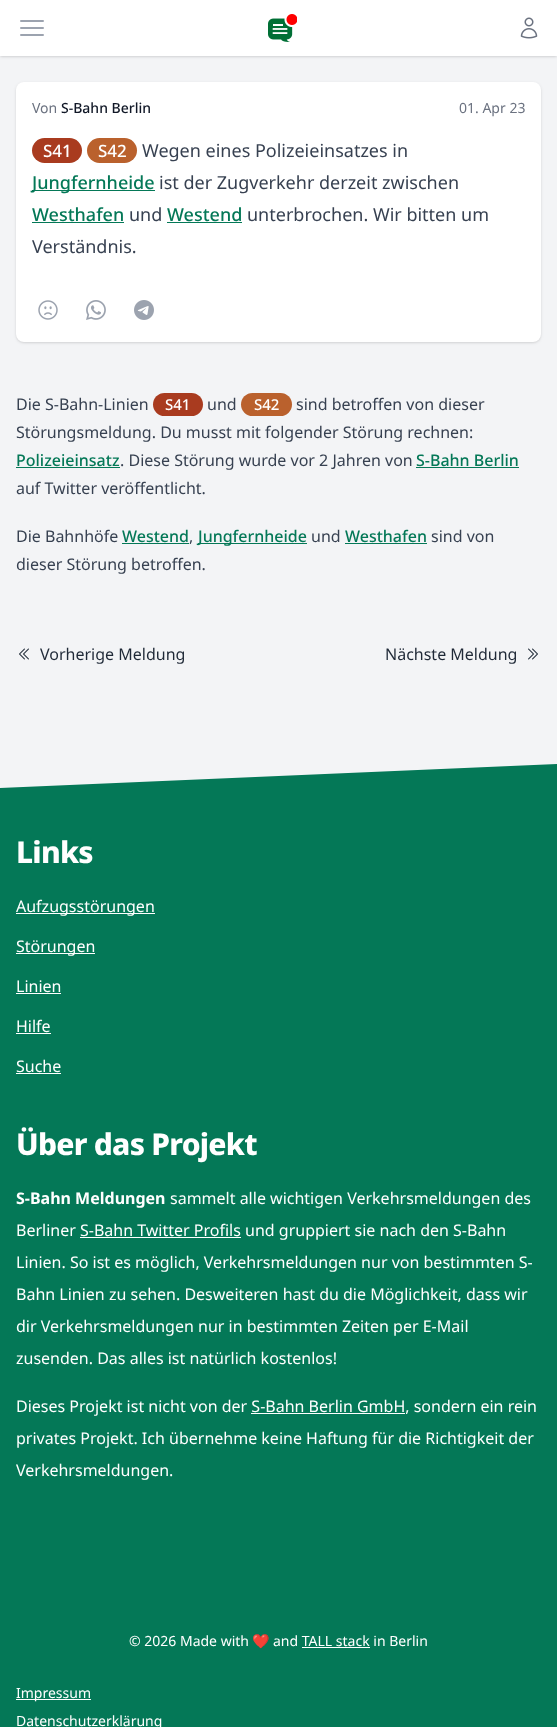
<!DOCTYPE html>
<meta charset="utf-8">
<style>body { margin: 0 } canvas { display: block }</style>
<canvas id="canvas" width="557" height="1727"></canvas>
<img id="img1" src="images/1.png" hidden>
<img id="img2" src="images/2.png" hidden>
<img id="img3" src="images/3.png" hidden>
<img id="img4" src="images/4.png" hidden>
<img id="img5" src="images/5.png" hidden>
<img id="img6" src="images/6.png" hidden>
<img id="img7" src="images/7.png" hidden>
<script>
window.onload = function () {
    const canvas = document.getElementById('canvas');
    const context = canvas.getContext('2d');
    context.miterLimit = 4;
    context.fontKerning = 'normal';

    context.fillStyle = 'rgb(243, 244, 246)';
    context.fillRect(0, 0, 557, 1727);
    context.fillStyle = 'rgba(0, 0, 0, 0.1)';
    context.filter = 'blur(1px)';
    context.beginPath();
    context.rect(1, 2, 555, 54);
    context.fill();
    context.filter = 'none';
    context.filter = 'blur(1.5px)';
    context.beginPath();
    context.rect(0, 1, 557, 56);
    context.fill();
    context.filter = 'none';
    context.fillStyle = 'rgb(255, 255, 255)';
    context.fillRect(0, 0, 557, 56);
    context.beginPath();
    context.moveTo(21, 21);
    context.lineTo(43, 21);
    context.moveTo(21, 28);
    context.lineTo(43, 28);
    context.moveTo(21, 35);
    context.lineTo(43, 35);
    context.strokeStyle = 'rgb(156, 163, 175)';
    context.lineWidth = 2;
    context.lineCap = 'round';
    context.lineJoin = 'round';
    context.stroke();
    context.drawImage(document.getElementById('img1'), 268, 14, 29, 28);
    context.drawImage(document.getElementById('img2'), 520, 17, 18, 22);
    context.fillStyle = 'rgba(0, 0, 0, 0.1)';
    context.filter = 'blur(1px)';
    context.beginPath();
    context.roundRect(17, 84, 523, 258, 7);
    context.fill();
    context.filter = 'none';
    context.filter = 'blur(1.5px)';
    context.beginPath();
    context.roundRect(16, 83, 525, 260, 8);
    context.fill();
    context.filter = 'none';
    context.fillStyle = 'rgb(255, 255, 255)';
    context.beginPath();
    context.roundRect(16, 82, 525, 260, 8);
    context.fill();
    context.fillStyle = 'rgb(169, 59, 31)';
    context.beginPath();
    context.roundRect(32, 138, 50, 25, 12.5);
    context.fill();
    context.fillStyle = 'rgb(186, 97, 45)';
    context.beginPath();
    context.roundRect(87, 138, 50, 25, 12.5);
    context.fill();
    context.fillStyle = 'rgb(4, 120, 87)';
    context.fillRect(32, 190, 123, 1);
    context.fillRect(32, 222, 92, 1);
    context.fillRect(167, 222, 75, 1);
    context.drawImage(document.getElementById('img3'), 38, 300, 20, 20);
    context.drawImage(document.getElementById('img4'), 86, 300, 20, 20);
    context.drawImage(document.getElementById('img5'), 134, 300, 20, 20);
    context.fillStyle = 'rgb(169, 59, 31)';
    context.beginPath();
    context.roundRect(153, 393, 50, 23, 11.5);
    context.fill();
    context.fillStyle = 'rgb(186, 97, 45)';
    context.beginPath();
    context.roundRect(241, 393, 51, 23, 11.5);
    context.fill();
    context.fillStyle = 'rgb(4, 120, 87)';
    context.fillRect(16, 467, 104, 1);
    context.fillRect(416, 467, 103, 1);
    context.fillRect(122, 543, 67, 1);
    context.fillRect(198, 543, 109, 1);
    context.fillRect(345, 543, 82, 1);
    context.drawImage(document.getElementById('img6'), 19, 648, 10, 12);
    context.drawImage(document.getElementById('img7'), 528, 648, 10, 12);
    context.beginPath();
    context.moveTo(0, 788);
    context.lineTo(557, 764);
    context.lineTo(557, 838);
    context.lineTo(0, 838);
    context.closePath();
    context.fill();
    context.fillRect(0, 838, 557, 889);
    context.fillStyle = 'rgb(255, 255, 255)';
    context.fillRect(16, 913, 139, 1);
    context.fillRect(16, 953, 79, 1);
    context.fillRect(16, 993, 45, 1);
    context.fillRect(16, 1033, 35, 1);
    context.fillRect(16, 1073, 45, 1);
    context.fillRect(80, 1237, 161, 1);
    context.fillRect(251, 1413, 154, 1);
    context.fillRect(302, 1647, 68, 1);
    context.fillRect(16, 1699, 75, 1);
    context.font = '14px Noto Sans';
    context.fillStyle = 'rgb(107, 114, 128)';
    context.fillText('Von', 32, 113);
    context.font = '500 14px Noto Sans';
    context.fillStyle = 'rgb(17, 24, 39)';
    context.fillText('S-Bahn Berlin', 61, 113);
    context.font = '14px Noto Sans';
    context.fillStyle = 'rgb(107, 114, 128)';
    context.fillText('01. Apr 23', 459, 113);
    context.font = '500 17px Noto Sans';
    context.fillStyle = 'rgb(255, 255, 255)';
    context.fillText('S41', 43, 157);
    context.fillText('S42', 98, 157);
    context.font = '18px Noto Sans';
    context.fillStyle = 'rgb(55, 65, 81)';
    context.fillText('Wegen eines Polizeieinsatzes in', 142, 157);
    context.font = '500 18px Noto Sans';
    context.fillStyle = 'rgb(4, 120, 87)';
    context.fillText('Jungfernheide', 32, 189);
    context.font = '18px Noto Sans';
    context.fillStyle = 'rgb(55, 65, 81)';
    context.fillText('ist der Zugverkehr derzeit zwischen', 159, 189);
    context.font = '500 18px Noto Sans';
    context.fillStyle = 'rgb(4, 120, 87)';
    context.fillText('Westhafen', 32, 221);
    context.font = '18px Noto Sans';
    context.fillStyle = 'rgb(55, 65, 81)';
    context.fillText('und', 129, 221);
    context.font = '500 18px Noto Sans';
    context.fillStyle = 'rgb(4, 120, 87)';
    context.fillText('Westend', 167, 221);
    context.font = '18px Noto Sans';
    context.fillStyle = 'rgb(55, 65, 81)';
    context.fillText('unterbrochen. Wir bitten um', 247, 221);
    context.fillText('Verständnis.', 32, 253);
    context.font = '16px Noto Sans';
    context.fillText('Die S-Bahn-Linien', 16, 410);
    context.font = '500 15px Noto Sans';
    context.fillStyle = 'rgb(255, 255, 255)';
    context.fillText('S41', 165, 410);
    context.font = '16px Noto Sans';
    context.fillStyle = 'rgb(55, 65, 81)';
    context.fillText('und', 207, 410);
    context.font = '500 15px Noto Sans';
    context.fillStyle = 'rgb(255, 255, 255)';
    context.fillText('S42', 254, 410);
    context.font = '16px Noto Sans';
    context.fillStyle = 'rgb(55, 65, 81)';
    context.fillText('sind betroffen von dieser', 296, 410);
    context.fillText('Störungsmeldung. Du musst mit folgender Störung rechnen:', 16, 438);
    context.font = '500 16px Noto Sans';
    context.fillStyle = 'rgb(4, 120, 87)';
    context.fillText('Polizeieinsatz', 16, 466);
    context.font = '16px Noto Sans';
    context.fillStyle = 'rgb(55, 65, 81)';
    context.fillText('. Diese Störung wurde vor 2 Jahren von', 120, 466);
    context.font = '500 16px Noto Sans';
    context.fillStyle = 'rgb(4, 120, 87)';
    context.fillText('S-Bahn Berlin', 416, 466);
    context.font = '16px Noto Sans';
    context.fillStyle = 'rgb(55, 65, 81)';
    context.fillText('auf Twitter veröffentlicht.', 16, 494);
    context.fillText('Die Bahnhöfe', 16, 542);
    context.font = '500 16px Noto Sans';
    context.fillStyle = 'rgb(4, 120, 87)';
    context.fillText('Westend', 122, 542);
    context.font = '16px Noto Sans';
    context.fillStyle = 'rgb(55, 65, 81)';
    context.fillText(',', 189, 542);
    context.font = '500 16px Noto Sans';
    context.fillStyle = 'rgb(4, 120, 87)';
    context.fillText('Jungfernheide', 198, 542);
    context.font = '16px Noto Sans';
    context.fillStyle = 'rgb(55, 65, 81)';
    context.fillText('und', 311, 542);
    context.font = '500 16px Noto Sans';
    context.fillStyle = 'rgb(4, 120, 87)';
    context.fillText('Westhafen', 345, 542);
    context.font = '16px Noto Sans';
    context.fillStyle = 'rgb(55, 65, 81)';
    context.fillText('sind von', 431, 542);
    context.fillText('dieser Störung betroffen.', 16, 570);
    context.fillStyle = 'rgb(31, 41, 55)';
    context.fillText('Vorherige Meldung', 40, 660);
    context.fillText('Nächste Meldung', 385, 660);
    context.letterSpacing = '-0.75px';
    context.font = '800 30px Noto Sans';
    context.fillStyle = 'rgb(255, 255, 255)';
    context.fillText('Links', 16, 863);
    context.letterSpacing = '0px';
    context.font = '16px Noto Sans';
    context.fillText('Aufzugsstörungen', 16, 912);
    context.fillText('Störungen', 16, 952);
    context.fillText('Linien', 16, 992);
    context.fillText('Hilfe', 16, 1032);
    context.fillText('Suche', 16, 1072);
    context.letterSpacing = '-0.75px';
    context.font = '800 30px Noto Sans';
    context.fillText('Über das Projekt', 16, 1155);
    context.letterSpacing = '0px';
    context.font = 'bold 16px Noto Sans';
    context.fillText('S-Bahn Meldungen', 16, 1204);
    context.font = '16px Noto Sans';
    context.fillText('sammelt alle wichtigen Verkehrsmeldungen des', 170, 1204);
    context.fillText('Berliner S-Bahn Twitter Profils und gruppiert sie nach den S-Bahn', 16, 1236);
    context.fillText('Linien. So ist es möglich, Verkehrsmeldungen nur von bestimmten S-', 16, 1268);
    context.fillText('Bahn Linien zu sehen. Desweiteren hast du die Möglichkeit, dass wir', 16, 1300);
    context.fillText('dir Verkehrsmeldungen nur in bestimmten Zeiten per E-Mail', 16, 1332);
    context.fillText('zusenden. Das alles ist natürlich kostenlos!', 16, 1364);
    context.fillText('Dieses Projekt ist nicht von der S-Bahn Berlin GmbH, sondern ein rein', 16, 1412);
    context.fillText('privates Projekt. Ich übernehme keine Haftung für die Richtigkeit der', 16, 1444);
    context.fillText('Verkehrsmeldungen.', 16, 1476);
    context.font = '14px Noto Sans';
    context.fillText('© 2026 Made with', 129, 1646);
    context.font = '14px Noto Color Emoji';
    context.fillText('❤️', 252, 1646);
    context.font = '14px Noto Sans';
    context.fillText('and TALL stack in Berlin', 273, 1646);
    context.fillText('Impressum', 16, 1698);
    context.fillText('Datenschutzerklärung', 16, 1726);
};
</script>
